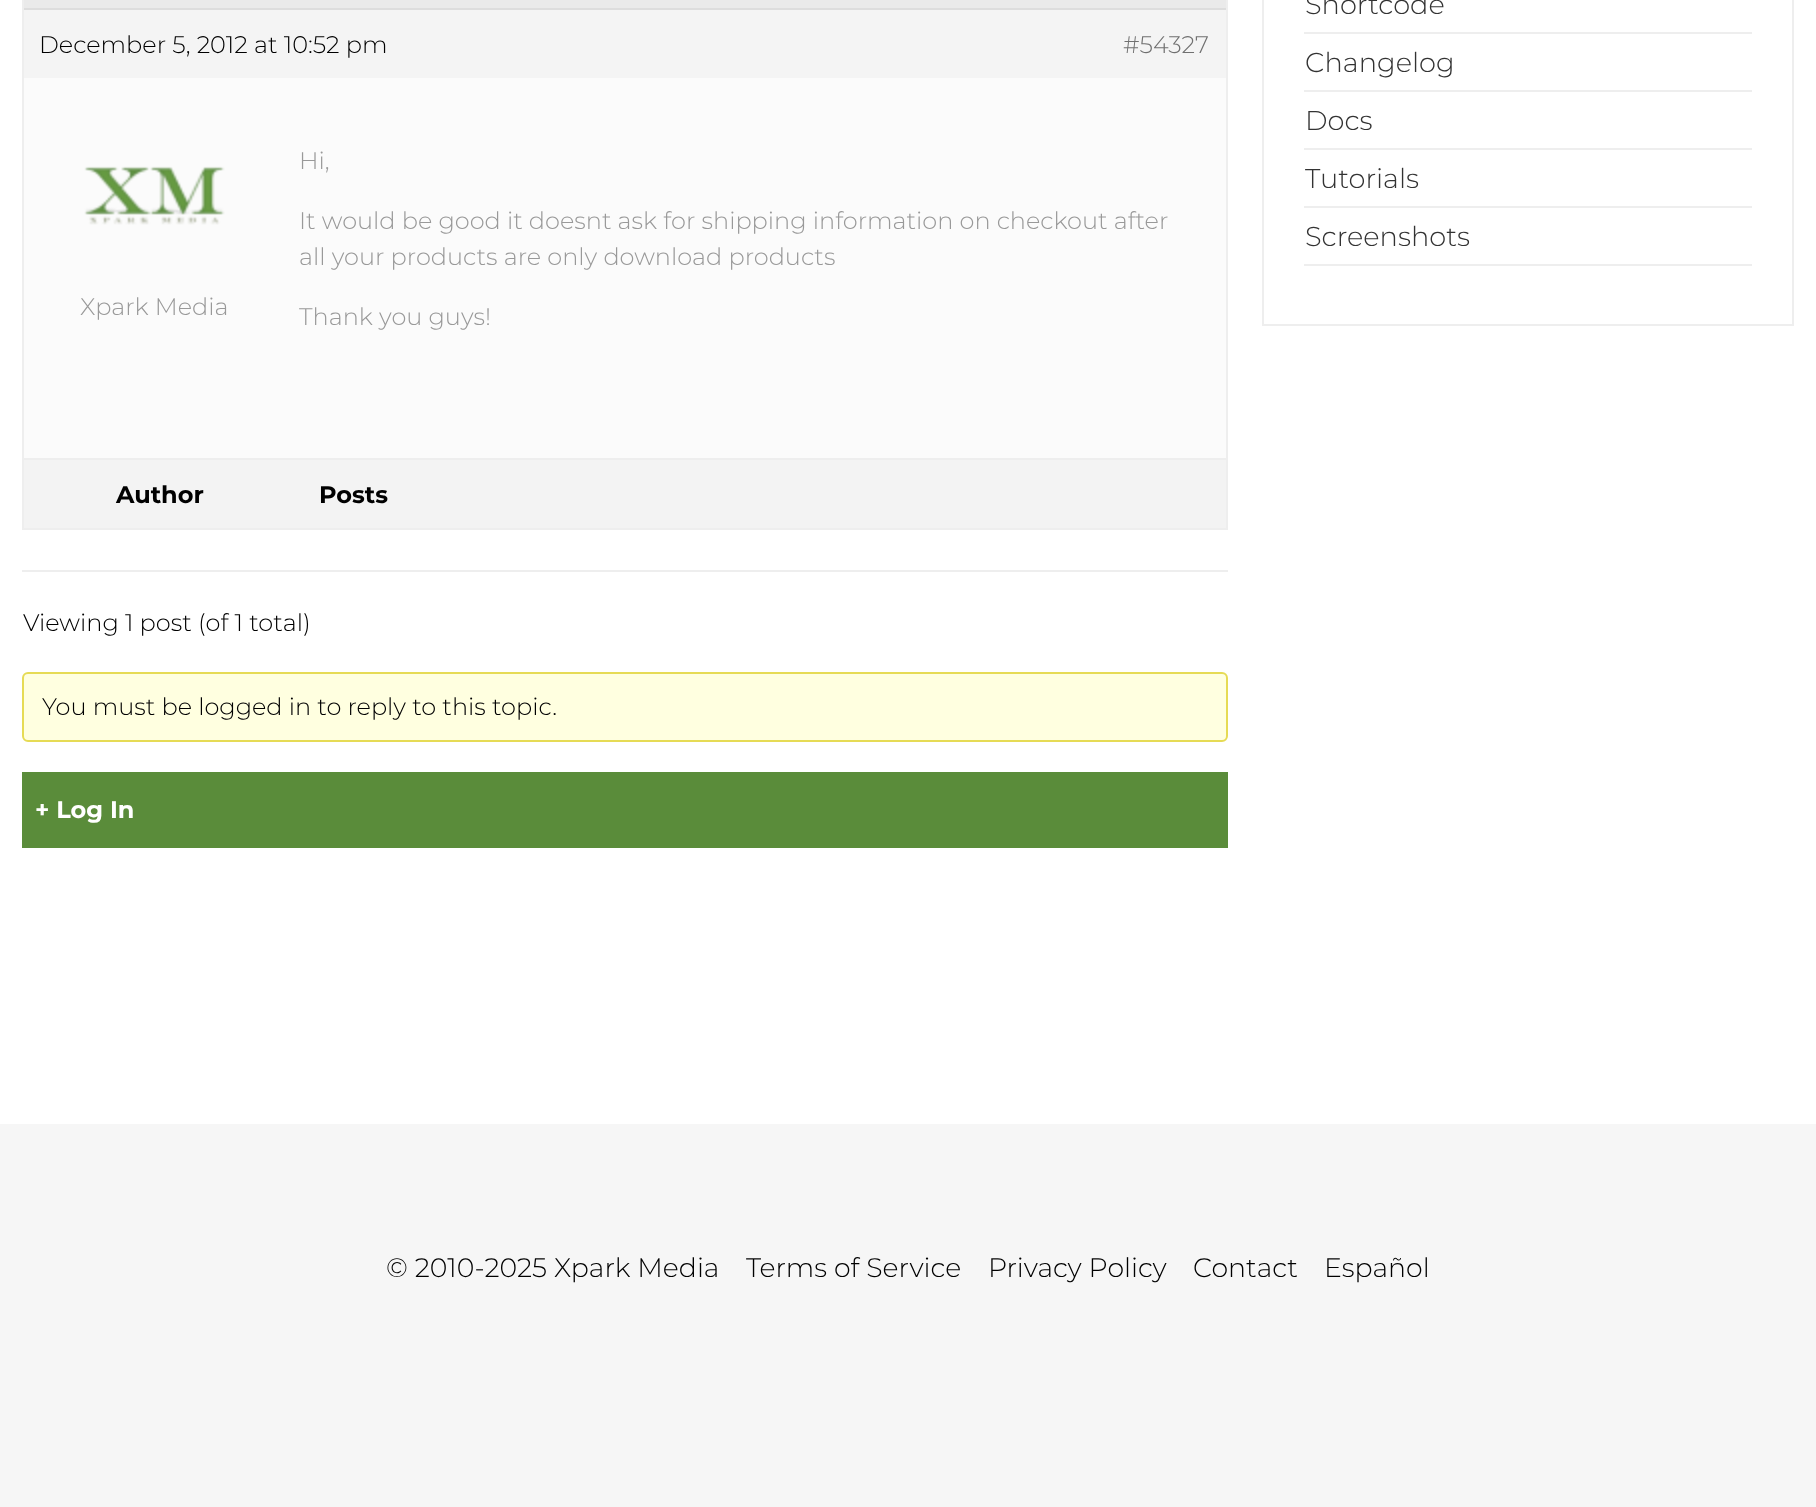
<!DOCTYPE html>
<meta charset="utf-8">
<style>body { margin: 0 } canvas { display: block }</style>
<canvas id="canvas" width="1816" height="1507"></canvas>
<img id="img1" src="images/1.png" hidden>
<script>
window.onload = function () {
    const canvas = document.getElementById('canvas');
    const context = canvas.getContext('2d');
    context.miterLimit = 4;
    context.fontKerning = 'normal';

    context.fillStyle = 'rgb(255, 255, 255)';
    context.fillRect(0, 0, 1816, 1507);
    context.strokeStyle = 'rgb(238, 238, 238)';
    context.lineWidth = 2;
    context.strokeRect(23, -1, 1204, 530);
    context.fillStyle = 'rgb(234, 234, 234)';
    context.fillRect(24, 0, 1202, 8);
    context.fillStyle = 'rgb(244, 244, 244)';
    context.fillRect(24, 10, 1202, 68);
    context.fillStyle = 'rgb(221, 221, 221)';
    context.fillRect(24, 8, 1202, 2);
    context.fillStyle = 'rgb(251, 251, 251)';
    context.fillRect(24, 78, 1202, 380);
    context.drawImage(document.getElementById('img1'), 84, 166, 141, 59);
    context.fillStyle = 'rgb(243, 243, 243)';
    context.fillRect(24, 460, 1202, 68);
    context.fillStyle = 'rgb(238, 238, 238)';
    context.fillRect(24, 458, 1202, 2);
    context.fillRect(22, 570, 1206, 2);
    context.fillStyle = 'rgb(255, 255, 224)';
    context.beginPath();
    context.roundRect(23, 673, 1204, 68, 5);
    context.fill();
    context.strokeStyle = 'rgb(230, 219, 85)';
    context.stroke();
    context.fillStyle = 'rgb(90, 140, 58)';
    context.fillRect(22, 772, 1206, 76);
    context.strokeStyle = 'rgb(238, 238, 238)';
    context.strokeRect(1263, -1, 530, 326);
    context.fillStyle = 'rgb(238, 238, 238)';
    context.fillRect(1304, 32, 448, 2);
    context.fillRect(1304, 90, 448, 2);
    context.fillRect(1304, 148, 448, 2);
    context.fillRect(1304, 206, 448, 2);
    context.fillRect(1304, 264, 448, 2);
    context.fillStyle = 'rgb(246, 246, 246)';
    context.fillRect(0, 1124, 1816, 383);
    context.font = '300 24px Montserrat';
    context.fillStyle = 'rgb(0, 0, 0)';
    context.fillText('December 5, 2012 at 10:52 pm', 39, 53);
    context.fillStyle = 'rgb(112, 112, 112)';
    context.fillText('#54327', 1123, 53);
    context.fillStyle = 'rgb(153, 153, 153)';
    context.fillText('Xpark Media', 80, 315);
    context.fillText('Hi,', 299, 169);
    context.fillText('It would be good it doesnt ask for shipping information on checkout after', 299, 229);
    context.fillText('all your products are only download products', 299, 265);
    context.fillText('Thank you guys!', 299, 325);
    context.font = 'bold 24px Montserrat';
    context.fillStyle = 'rgb(0, 0, 0)';
    context.fillText('Author', 116, 503);
    context.fillText('Posts', 319, 503);
    context.font = '300 24px Montserrat';
    context.fillText('Viewing 1 post (of 1 total)', 23, 631);
    context.fillText('You must be logged in to reply to this topic.', 42, 715);
    context.font = 'bold 24px Montserrat';
    context.fillStyle = 'rgb(255, 255, 255)';
    context.fillText('+ Log In', 35, 818);
    context.font = '300 27.25px Montserrat';
    context.fillStyle = 'rgb(51, 51, 51)';
    context.fillText('Shortcode', 1305, 14);
    context.fillText('Changelog', 1305, 72);
    context.fillText('Docs', 1305, 130);
    context.fillText('Tutorials', 1305, 188);
    context.fillText('Screenshots', 1305, 246);
    context.font = '300 26.75px Montserrat';
    context.fillStyle = 'rgb(0, 0, 0)';
    context.fillText('© 2010-2025 Xpark Media', 386, 1277);
    context.fillText('Terms of Service', 746, 1277);
    context.fillText('Privacy Policy', 988, 1277);
    context.fillText('Contact', 1193, 1277);
    context.fillText('Español', 1324, 1277);
};
</script>
